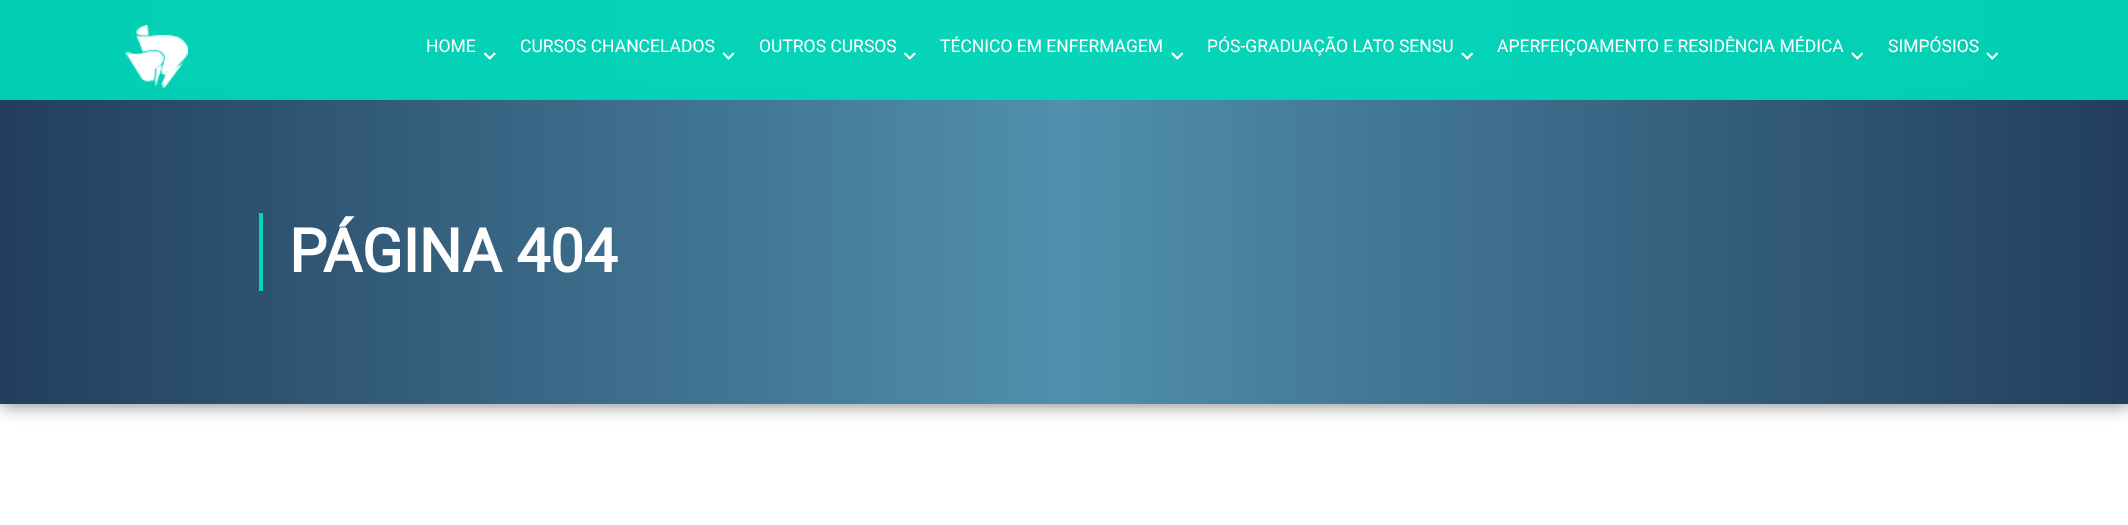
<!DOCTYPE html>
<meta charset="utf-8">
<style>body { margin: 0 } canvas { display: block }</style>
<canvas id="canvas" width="2128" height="525"></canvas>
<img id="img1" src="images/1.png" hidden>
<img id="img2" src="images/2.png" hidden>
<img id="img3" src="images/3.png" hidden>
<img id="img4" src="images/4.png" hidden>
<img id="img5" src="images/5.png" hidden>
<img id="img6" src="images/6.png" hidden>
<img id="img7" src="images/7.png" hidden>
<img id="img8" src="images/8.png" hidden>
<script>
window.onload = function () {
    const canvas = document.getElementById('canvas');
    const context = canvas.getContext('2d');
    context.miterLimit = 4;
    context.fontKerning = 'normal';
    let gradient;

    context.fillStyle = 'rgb(255, 255, 255)';
    context.fillRect(0, 0, 2128, 525);
    gradient = context.createLinearGradient(0, 202, 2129, 202);
    gradient.addColorStop(0, 'rgb(34, 62, 93)');
    gradient.addColorStop(0.5, 'rgb(80, 144, 172)');
    gradient.addColorStop(1, 'rgb(34, 62, 93)');
    context.fillStyle = gradient;
    context.fillRect(0, 0, 2128, 404);
    context.save();
    context.beginPath();
    context.moveTo(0, 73);
    context.lineTo(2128, 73);
    context.lineTo(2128, 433);
    context.lineTo(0, 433);
    context.closePath();
    context.moveTo(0, 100);
    context.lineTo(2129, 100);
    context.lineTo(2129, 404);
    context.lineTo(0, 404);
    context.closePath();
    context.clip('evenodd');
    context.fillStyle = 'rgba(0, 0, 0, 0.5)';
    context.filter = 'blur(9px)';
    context.beginPath();
    context.rect(1, 101, 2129, 304);
    context.fill();
    context.filter = 'none';
    context.restore();
    context.fillStyle = 'rgba(0, 219, 187, 0.92)';
    context.fillRect(0, 0, 2128, 100);
    context.drawImage(document.getElementById('img1'), 125, 25, 63, 63);
    context.drawImage(document.getElementById('img2'), 484, 52, 12, 8);
    context.drawImage(document.getElementById('img3'), 722, 52, 13, 8);
    context.drawImage(document.getElementById('img4'), 904, 52, 12, 8);
    context.drawImage(document.getElementById('img5'), 1171, 52, 13, 8);
    context.drawImage(document.getElementById('img6'), 1461, 52, 13, 8);
    context.drawImage(document.getElementById('img7'), 1851, 52, 13, 8);
    context.drawImage(document.getElementById('img8'), 1986, 52, 13, 8);
    context.fillStyle = 'rgb(0, 219, 187)';
    context.fillRect(259, 213, 4, 78);
    context.font = '17.5px Roboto';
    context.fillStyle = 'rgb(255, 255, 255)';
    context.fillText('HOME', 426, 52);
    context.fillText('CURSOS CHANCELADOS', 520, 52);
    context.fillText('OUTROS CURSOS', 759, 52);
    context.fillText('TÉCNICO EM ENFERMAGEM', 940, 52);
    context.fillText('PÓS-GRADUAÇÃO LATO SENSU', 1207, 52);
    context.fillText('APERFEIÇOAMENTO E RESIDÊNCIA MÉDICA', 1497, 52);
    context.fillText('SIMPÓSIOS', 1888, 52);
    context.font = 'bold 60px Roboto';
    context.fillText('PÁGINA 404', 289, 272);
};
</script>
